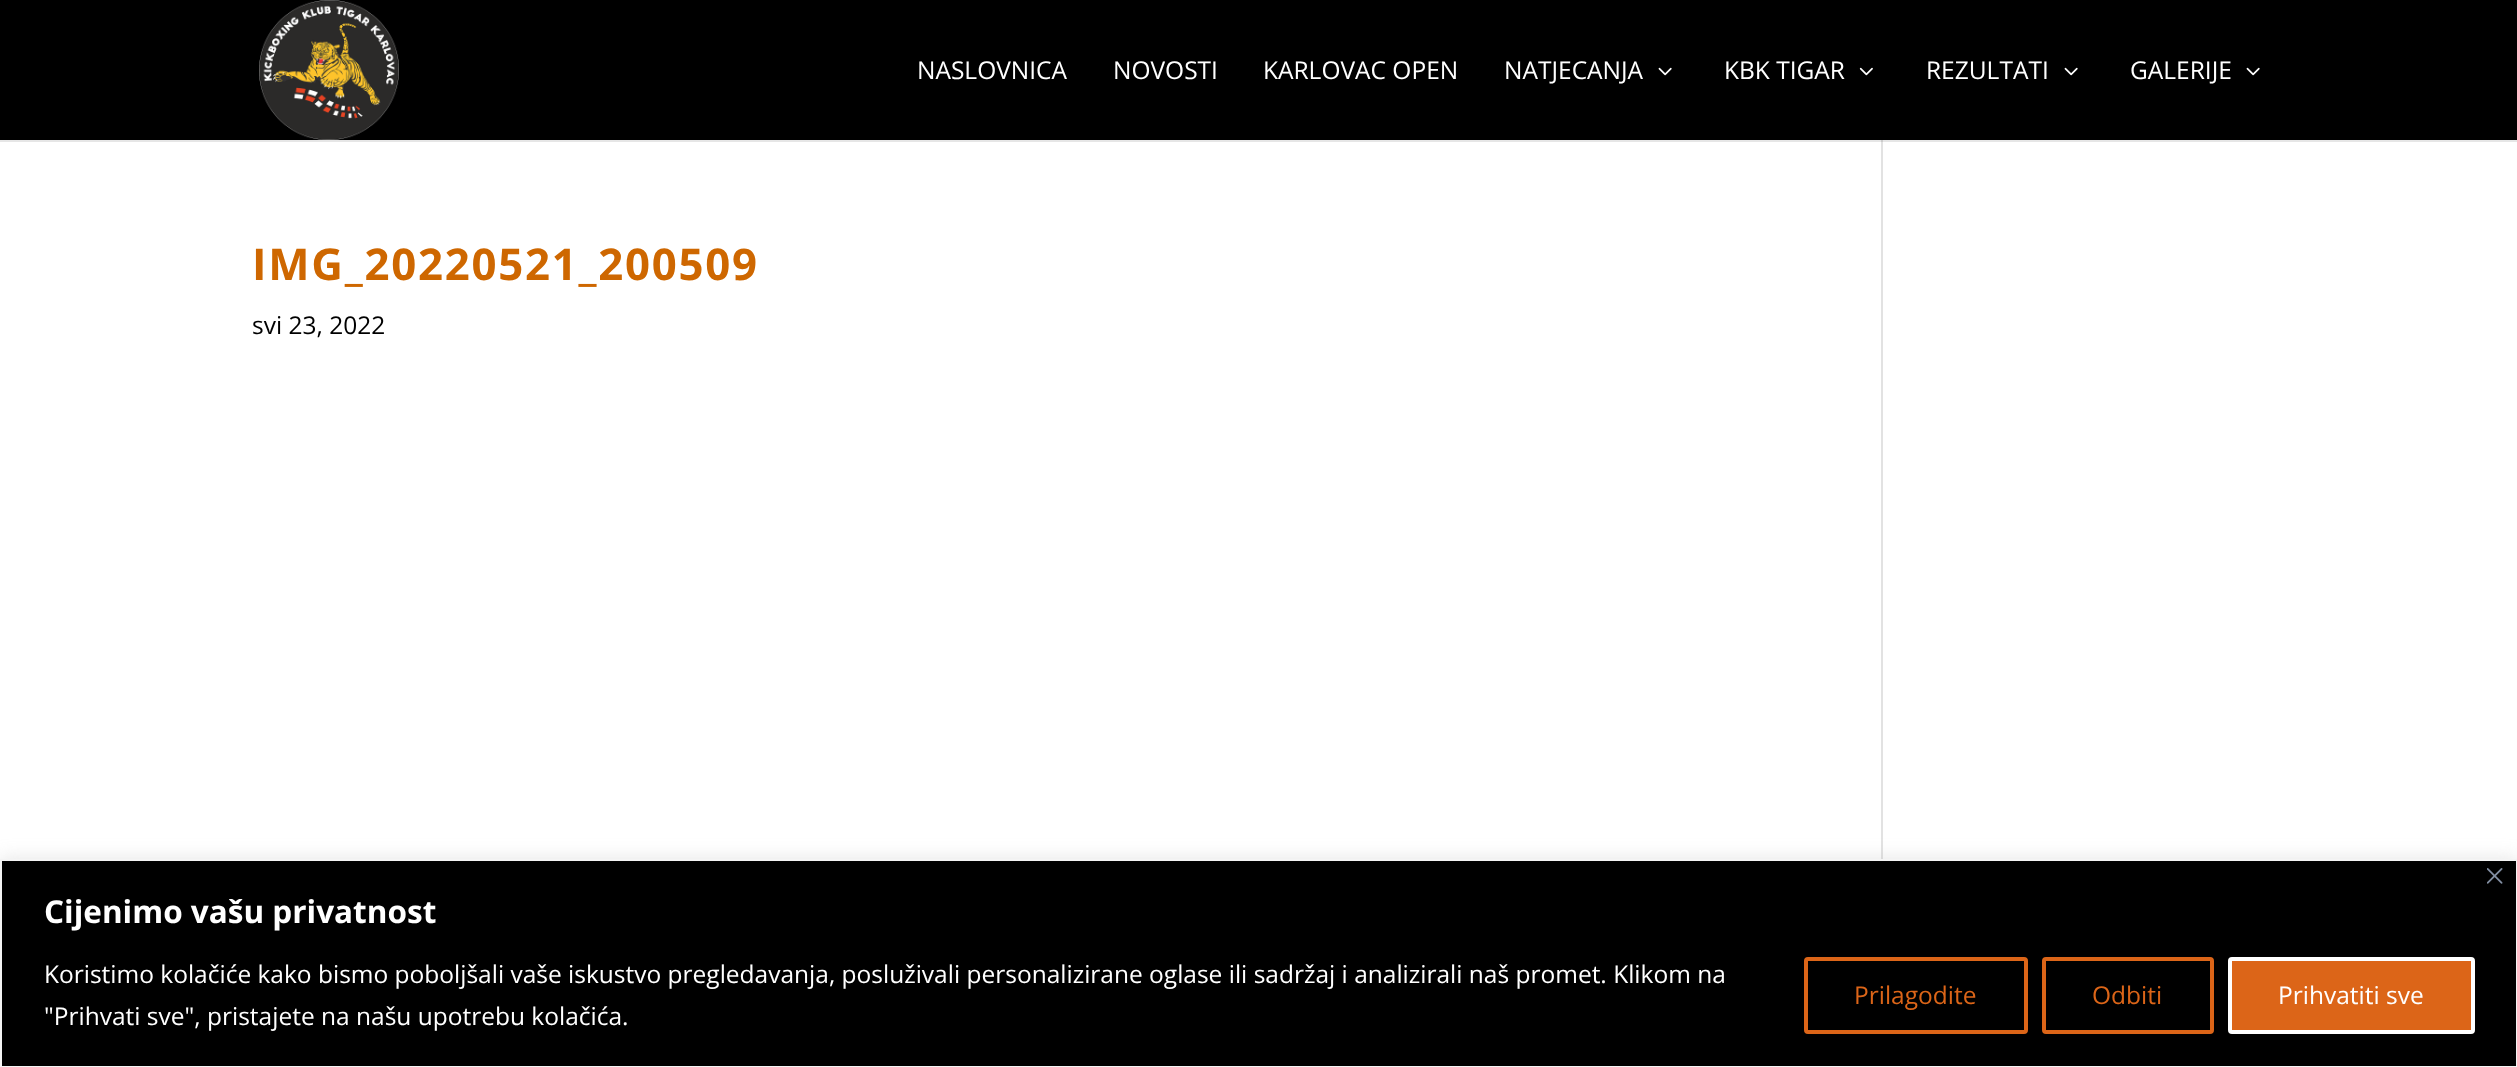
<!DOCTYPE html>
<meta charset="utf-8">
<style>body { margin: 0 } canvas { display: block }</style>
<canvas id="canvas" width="2517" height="1067"></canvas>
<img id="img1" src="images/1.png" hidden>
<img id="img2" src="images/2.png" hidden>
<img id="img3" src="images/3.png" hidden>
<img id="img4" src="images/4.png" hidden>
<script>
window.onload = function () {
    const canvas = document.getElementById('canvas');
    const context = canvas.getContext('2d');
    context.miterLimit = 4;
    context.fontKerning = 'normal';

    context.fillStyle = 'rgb(255, 255, 255)';
    context.fillRect(0, 0, 2517, 1067);
    context.fillStyle = 'rgb(230, 230, 230)';
    context.fillRect(0, 140, 2517, 2);
    context.fillStyle = 'rgb(0, 0, 0)';
    context.fillRect(0, 0, 2517, 140);
    context.drawImage(document.getElementById('img1'), 259, 0, 140, 140);
    context.drawImage(document.getElementById('img2'), 1658, 67, 14, 9);
    context.drawImage(document.getElementById('img3'), 1859, 67, 14, 9);
    context.drawImage(document.getElementById('img2'), 2064, 67, 14, 9);
    context.drawImage(document.getElementById('img2'), 2246, 67, 14, 9);
    context.fillStyle = 'rgb(226, 226, 226)';
    context.fillRect(1881, 140, 2, 719);
    context.fillStyle = 'rgb(203, 203, 203)';
    context.fillRect(1881, 140, 2, 2);
    context.fillStyle = 'rgba(172, 171, 171, 0.3)';
    context.filter = 'blur(9px)';
    context.beginPath();
    context.rect(0, 858, 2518, 208);
    context.fill();
    context.filter = 'none';
    context.fillStyle = 'rgb(0, 0, 0)';
    context.beginPath();
    context.rect(1, 860, 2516, 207);
    context.fill();
    context.strokeStyle = 'rgb(244, 244, 244)';
    context.lineWidth = 2;
    context.stroke();
    context.drawImage(document.getElementById('img4'), 2487, 868, 16, 16);
    context.beginPath();
    context.roundRect(1806, 959, 220, 73, 2);
    context.strokeStyle = 'rgb(220, 101, 24)';
    context.lineWidth = 4;
    context.stroke();
    context.beginPath();
    context.roundRect(2044, 959, 168, 73, 2);
    context.stroke();
    context.fillStyle = 'rgb(220, 101, 24)';
    context.beginPath();
    context.roundRect(2230, 959, 243, 73, 2);
    context.fill();
    context.strokeStyle = 'rgb(255, 255, 255)';
    context.stroke();
    context.font = '24.5px Open Sans';
    context.fillStyle = 'rgb(255, 255, 255)';
    context.fillText('NASLOVNICA', 917, 79);
    context.fillText('NOVOSTI', 1113, 79);
    context.fillText('KARLOVAC OPEN', 1263, 79);
    context.fillText('NATJECANJA', 1504, 79);
    context.fillText('KBK TIGAR', 1724, 79);
    context.fillText('REZULTATI', 1926, 79);
    context.fillText('GALERIJE', 2130, 79);
    context.letterSpacing = '1.75px';
    context.font = 'bold 43.75px Open Sans';
    context.fillStyle = 'rgb(206, 103, 0)';
    context.fillText('IMG_20220521_200509', 252, 280);
    context.letterSpacing = '0px';
    context.font = '24.5px Open Sans';
    context.fillStyle = 'rgb(0, 0, 0)';
    context.fillText('svi 23, 2022', 252, 334);
    context.font = 'bold 31.5px Open Sans';
    context.fillStyle = 'rgb(255, 255, 255)';
    context.fillText('Cijenimo vašu privatnost', 44, 923);
    context.font = '24.5px Open Sans';
    context.fillText('Koristimo kolačiće kako bismo poboljšali vaše iskustvo pregledavanja, posluživali personalizirane oglase ili sadržaj i analizirali naš promet. Klikom na', 44, 983);
    context.fillText('"Prihvati sve", pristajete na našu upotrebu kolačića.', 44, 1025);
    context.fillStyle = 'rgb(220, 101, 24)';
    context.fillText('Prilagodite', 1854, 1004);
    context.fillText('Odbiti', 2092, 1004);
    context.fillStyle = 'rgb(255, 255, 255)';
    context.fillText('Prihvatiti sve', 2278, 1004);
};
</script>
